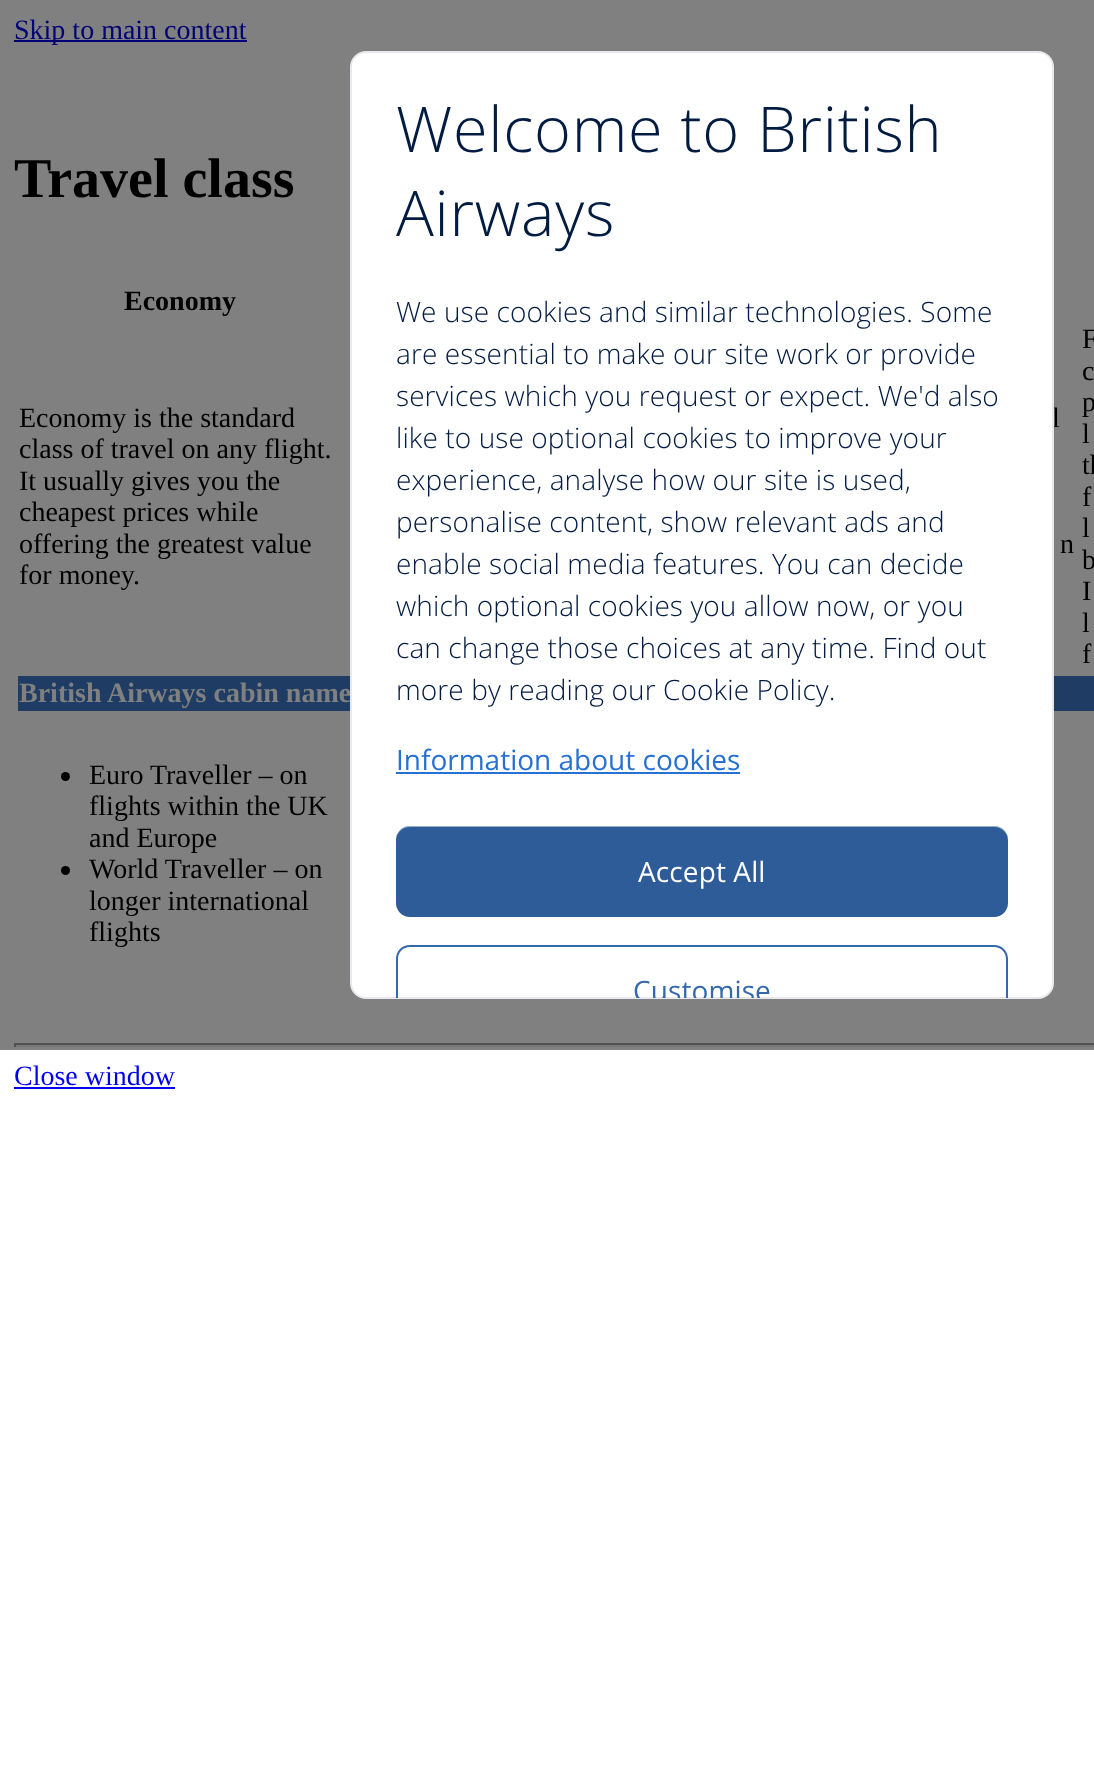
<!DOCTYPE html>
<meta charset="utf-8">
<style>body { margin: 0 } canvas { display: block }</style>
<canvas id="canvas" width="1094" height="1771"></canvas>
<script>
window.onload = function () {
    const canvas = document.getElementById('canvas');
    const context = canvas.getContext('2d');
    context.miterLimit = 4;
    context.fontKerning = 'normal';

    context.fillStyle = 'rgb(255, 255, 255)';
    context.fillRect(0, 0, 1094, 1771);
    context.fillStyle = 'rgb(128, 128, 128)';
    context.fillRect(0, 0, 1094, 1050);
    context.fillStyle = 'rgb(0, 0, 119)';
    context.fillRect(14, 40, 233, 2);
    context.fillStyle = 'rgb(30, 60, 100)';
    context.fillRect(18, 676, 1076, 35);
    context.fillStyle = 'rgb(0, 0, 0)';
    context.beginPath();
    context.arc(65.5, 776.5, 4.5, 0, 2 * Math.PI);
    context.fill();
    context.beginPath();
    context.arc(65.5, 870.5, 4.5, 0, 2 * Math.PI);
    context.fill();
    context.fillStyle = 'rgb(80, 80, 80)';
    context.fillRect(14, 1043, 1080, 2);
    context.fillStyle = 'rgb(119, 119, 119)';
    context.fillRect(14, 1045, 1080, 2);
    context.fillStyle = 'rgb(80, 80, 80)';
    context.fillRect(14, 1043, 2, 4);
    context.fillStyle = 'rgb(0, 0, 238)';
    context.fillRect(14, 1087, 161, 2);
    context.font = '28px Liberation Serif';
    context.fillStyle = 'rgb(0, 0, 119)';
    context.fillText('Skip to main content', 14, 39);
    context.font = 'bold 56px Liberation Serif';
    context.fillStyle = 'rgb(0, 0, 0)';
    context.fillText('Travel class', 14, 197);
    context.font = 'bold 28px Liberation Serif';
    context.fillText('Economy', 124, 310);
    context.font = '28px Liberation Serif';
    context.fillText('Economy is the standard', 19, 427);
    context.fillText('class of travel on any flight.', 19, 458);
    context.fillText('It usually gives you the', 19, 490);
    context.fillText('cheapest prices while', 19, 521);
    context.fillText('offering the greatest value', 19, 553);
    context.fillText('for money.', 19, 584);
    context.fillText('l', 1052, 427);
    context.fillText('n', 1060, 553);
    context.fillText('F', 1082, 348);
    context.fillText('c', 1082, 380);
    context.fillText('p', 1082, 411);
    context.fillText('l', 1082, 443);
    context.fillText('th', 1082, 474);
    context.fillText('f', 1082, 506);
    context.fillText('l', 1082, 537);
    context.fillText('b', 1082, 569);
    context.fillText('I', 1082, 600);
    context.fillText('l', 1082, 632);
    context.fillText('f', 1082, 663);
    context.font = 'bold 28px Liberation Serif';
    context.fillStyle = 'rgb(128, 128, 128)';
    context.fillText('British Airways cabin name', 19, 702);
    context.fillStyle = 'rgb(255, 255, 255)';
    context.beginPath();
    context.roundRect(351, 52, 702, 946, 15);
    context.fill();
    context.strokeStyle = 'rgb(231, 232, 236)';
    context.lineWidth = 2;
    context.stroke();
    context.fillStyle = 'rgb(52, 104, 173)';
    context.beginPath();
    context.moveTo(410, 945);
    context.bezierCurveTo(402, 945, 396, 951, 396, 959);
    context.lineTo(396, 998);
    context.lineTo(398, 998);
    context.lineTo(398, 959);
    context.bezierCurveTo(398, 952, 403, 947, 410, 947);
    context.lineTo(994, 947);
    context.bezierCurveTo(1001, 947, 1006, 952, 1006, 959);
    context.lineTo(1006, 998);
    context.lineTo(1008, 998);
    context.lineTo(1008, 959);
    context.bezierCurveTo(1008, 951, 1002, 945, 994, 945);
    context.closePath();
    context.fill();
    context.save();
    context.beginPath();
    context.roundRect(352, 53, 700, 945, 14);
    context.clip();
    context.letterSpacing = '0.1px';
    context.font = '28px Open Sans';
    context.fillText('Customise', 633, 1001);
    context.restore();
    context.fillStyle = 'rgb(46, 92, 153)';
    context.beginPath();
    context.roundRect(396, 826, 612, 91, 14);
    context.fill();
    context.letterSpacing = '0.1px';
    context.font = '28px Open Sans';
    context.fillStyle = 'rgb(255, 255, 255)';
    context.fillText('Accept All', 638, 882);
    context.fillStyle = 'rgba(255, 255, 255, 0.5)';
    context.beginPath();
    context.moveTo(410, 827);
    context.lineTo(994, 827);
    context.bezierCurveTo(1002, 827, 1008, 833, 1008, 841);
    context.lineTo(1008, 840);
    context.bezierCurveTo(1008, 832, 1002, 826, 994, 826);
    context.lineTo(410, 826);
    context.bezierCurveTo(402, 826, 396, 832, 396, 840);
    context.lineTo(396, 841);
    context.bezierCurveTo(396, 833, 402, 827, 410, 827);
    context.closePath();
    context.fill();
    context.letterSpacing = '0px';
    context.fillStyle = 'rgb(38, 113, 211)';
    context.fillText('Information about cookies', 396, 770);
    context.fillRect(396, 772, 344, 2);
    context.letterSpacing = '0.1px';
    context.font = '300 28px Open Sans';
    context.fillStyle = 'rgb(2, 27, 65)';
    context.fillText('more by reading our Cookie Policy.', 396, 700);
    context.fillText('can change those choices at any time. Find out', 396, 658);
    context.fillText('which optional cookies you allow now, or you', 396, 616);
    context.fillText('enable social media features. You can decide', 396, 574);
    context.fillText('personalise content, show relevant ads and', 396, 532);
    context.fillText('experience, analyse how our site is used,', 396, 490);
    context.fillText('like to use optional cookies to improve your', 396, 448);
    context.fillText('services which you request or expect. We\'d also', 396, 406);
    context.fillText('are essential to make our site work or provide', 396, 364);
    context.fillText('We use cookies and similar technologies. Some', 396, 322);
    context.letterSpacing = '0.75px';
    context.font = '300 63px Open Sans';
    context.fillText('Airways', 396, 236);
    context.fillText('Welcome to British', 396, 152);
    context.letterSpacing = '0px';
    context.font = '28px Liberation Serif';
    context.fillStyle = 'rgb(0, 0, 0)';
    context.fillText('Euro Traveller – on', 89, 784);
    context.fillText('flights within the UK', 89, 815);
    context.fillText('and Europe', 89, 847);
    context.fillText('World Traveller – on', 89, 878);
    context.fillText('longer international', 89, 910);
    context.fillText('flights', 89, 941);
    context.fillStyle = 'rgb(0, 0, 238)';
    context.fillText('Close window', 14, 1085);
};
</script>
